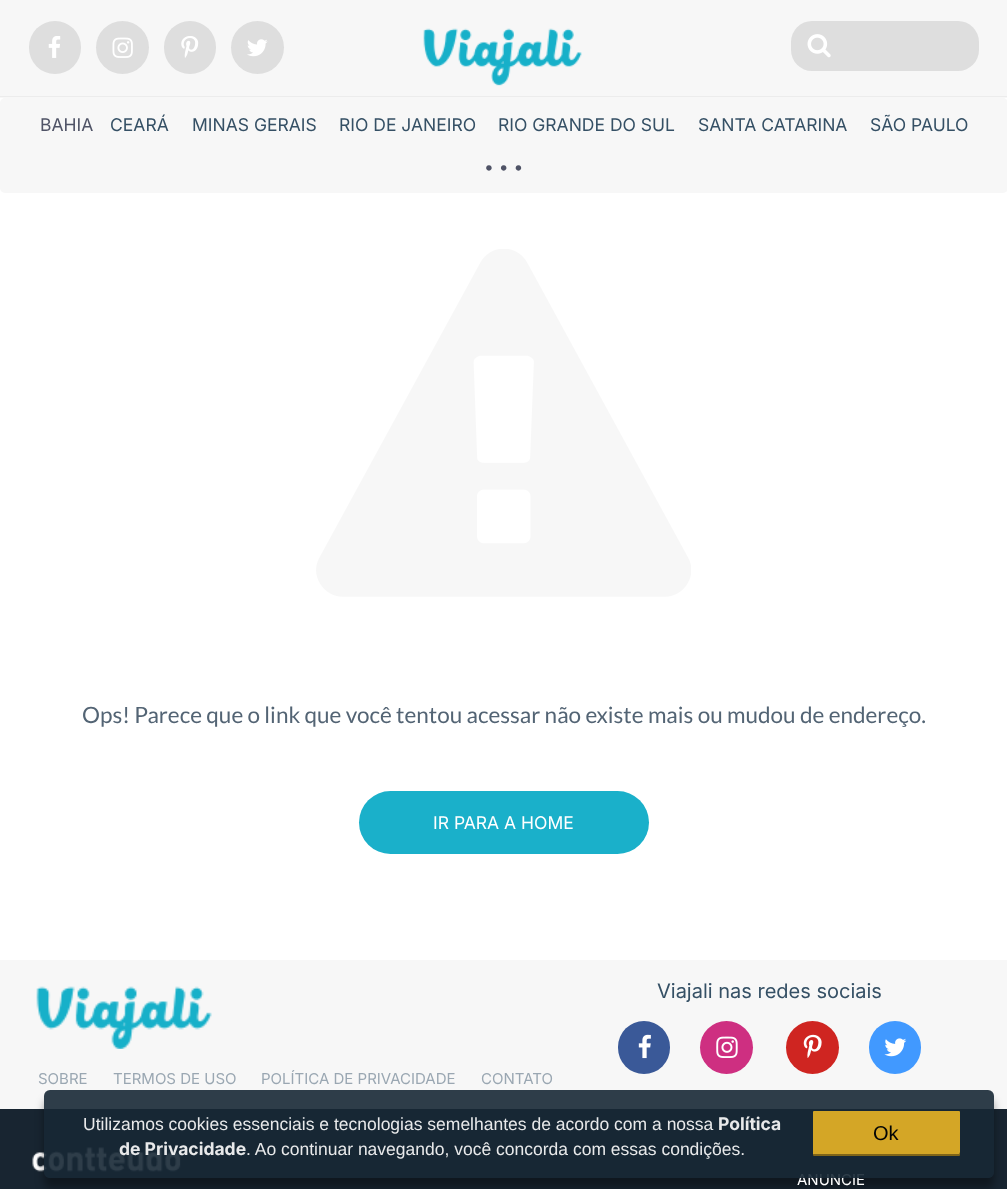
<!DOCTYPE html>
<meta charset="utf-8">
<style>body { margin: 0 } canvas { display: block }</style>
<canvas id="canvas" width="1007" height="1189"></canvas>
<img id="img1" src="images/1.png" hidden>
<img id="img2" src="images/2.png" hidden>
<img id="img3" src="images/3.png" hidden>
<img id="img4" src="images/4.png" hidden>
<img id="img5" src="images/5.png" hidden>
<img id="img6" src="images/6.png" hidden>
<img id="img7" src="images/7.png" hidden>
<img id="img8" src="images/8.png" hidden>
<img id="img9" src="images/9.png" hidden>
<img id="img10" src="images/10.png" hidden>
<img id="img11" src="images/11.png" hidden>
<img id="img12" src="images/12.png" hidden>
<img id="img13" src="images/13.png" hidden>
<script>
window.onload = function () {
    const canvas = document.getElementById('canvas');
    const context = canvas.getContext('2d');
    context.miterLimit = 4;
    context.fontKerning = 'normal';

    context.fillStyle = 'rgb(255, 255, 255)';
    context.fillRect(0, 0, 1007, 1189);
    context.fillStyle = 'rgb(247, 247, 247)';
    context.fillRect(0, 0, 1007, 98);
    context.fillStyle = 'rgb(236, 236, 236)';
    context.fillRect(0, 96, 1007, 1);
    context.fillStyle = 'rgb(222, 222, 222)';
    context.beginPath();
    context.roundRect(29, 21, 52, 53, 26);
    context.fill();
    context.drawImage(document.getElementById('img1'), 48, 36, 13, 22);
    context.beginPath();
    context.arc(122.5, 47.5, 26.5, 0, 2 * Math.PI);
    context.fill();
    context.drawImage(document.getElementById('img2'), 112, 37, 21, 21);
    context.beginPath();
    context.roundRect(164, 21, 52, 53, 26);
    context.fill();
    context.drawImage(document.getElementById('img3'), 181, 36, 18, 22);
    context.beginPath();
    context.arc(257.5, 47.5, 26.5, 0, 2 * Math.PI);
    context.fill();
    context.drawImage(document.getElementById('img4'), 247, 39, 21, 18);
    context.drawImage(document.getElementById('img5'), 423, 28, 159, 58);
    context.beginPath();
    context.roundRect(791, 21, 188, 50, 21);
    context.fill();
    context.drawImage(document.getElementById('img6'), 807, 34, 24, 24);
    context.fillStyle = 'rgb(247, 247, 247)';
    context.beginPath();
    context.roundRect(0, 98, 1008, 95, 5);
    context.fill();
    context.drawImage(document.getElementById('img7'), 316, 249, 375, 348);
    context.fillStyle = 'rgb(26, 176, 202)';
    context.beginPath();
    context.roundRect(359, 791, 290, 63, 31.5);
    context.fill();
    context.fillStyle = 'rgb(247, 247, 247)';
    context.fillRect(0, 960, 1007, 149);
    context.fillStyle = 'rgb(58, 89, 152)';
    context.beginPath();
    context.roundRect(618, 1021, 52, 53, 26);
    context.fill();
    context.drawImage(document.getElementById('img8'), 638, 1034, 13, 25);
    context.fillStyle = 'rgb(206, 47, 129)';
    context.beginPath();
    context.arc(726.5, 1047.5, 26.5, 0, 2 * Math.PI);
    context.fill();
    context.drawImage(document.getElementById('img9'), 716, 1036, 22, 22);
    context.fillStyle = 'rgb(207, 37, 33)';
    context.beginPath();
    context.arc(812.5, 1047.5, 26.5, 0, 2 * Math.PI);
    context.fill();
    context.drawImage(document.getElementById('img10'), 803, 1034, 19, 24);
    context.fillStyle = 'rgb(65, 153, 255)';
    context.beginPath();
    context.roundRect(869, 1021, 52, 53, 26);
    context.fill();
    context.drawImage(document.getElementById('img11'), 884, 1038, 23, 19);
    context.drawImage(document.getElementById('img12'), 36, 986, 176, 63);
    context.fillStyle = 'rgb(24, 37, 49)';
    context.fillRect(0, 1109, 1007, 80);
    context.drawImage(document.getElementById('img13'), 32, 1146, 149, 26);
    context.save();
    context.beginPath();
    context.moveTo(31, 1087);
    context.lineTo(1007, 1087);
    context.lineTo(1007, 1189);
    context.lineTo(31, 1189);
    context.closePath();
    context.moveTo(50, 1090);
    context.lineTo(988, 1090);
    context.bezierCurveTo(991.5, 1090, 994, 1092.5, 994, 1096);
    context.lineTo(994, 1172);
    context.bezierCurveTo(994, 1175.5, 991.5, 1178, 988, 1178);
    context.lineTo(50, 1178);
    context.bezierCurveTo(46.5, 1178, 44, 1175.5, 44, 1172);
    context.lineTo(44, 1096);
    context.bezierCurveTo(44, 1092.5, 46.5, 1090, 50, 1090);
    context.closePath();
    context.clip('evenodd');
    context.fillStyle = 'rgba(0, 0, 0, 0.37)';
    context.filter = 'blur(4px)';
    context.beginPath();
    context.roundRect(44, 1100, 950, 88, 6);
    context.fill();
    context.filter = 'none';
    context.restore();
    context.font = '17.5px Inter';
    context.fillStyle = 'rgb(79, 83, 102)';
    context.fillText('BAHIA', 40, 131);
    context.fillStyle = 'rgb(53, 80, 101)';
    context.fillText('CEARÁ', 110, 131);
    context.fillText('MINAS GERAIS', 192, 131);
    context.fillText('RIO DE JANEIRO', 339, 131);
    context.fillText('RIO GRANDE DO SUL', 498, 131);
    context.fillText('SANTA CATARINA', 698, 131);
    context.fillText('SÃO PAULO', 870, 131);
    context.fillStyle = 'rgb(79, 83, 102)';
    context.fillText('• • •', 484, 173);
    context.font = '22.5px Lato';
    context.fillStyle = 'rgb(83, 100, 116)';
    context.fillText('Ops! Parece que o link que você tentou acessar não existe mais ou mudou de endereço.', 82, 723);
    context.font = '17.5px Inter';
    context.fillStyle = 'rgb(255, 255, 255)';
    context.fillText('IR PARA A HOME', 433, 829);
    context.font = '20px Inter';
    context.fillStyle = 'rgb(53, 80, 101)';
    context.fillText('Viajali nas redes sociais', 657, 998);
    context.font = '15px Inter';
    context.fillStyle = 'rgb(154, 167, 178)';
    context.fillText('SOBRE', 38, 1084);
    context.fillText('TERMOS DE USO', 113, 1084);
    context.fillText('POLÍTICA DE PRIVACIDADE', 261, 1084);
    context.fillText('CONTATO', 481, 1084);
    context.fillStyle = 'rgb(255, 255, 255)';
    context.fillText('ANUNCIE', 797, 1185);
    context.fillStyle = 'rgba(23, 40, 53, 0.9)';
    context.beginPath();
    context.roundRect(44, 1090, 950, 88, 6);
    context.fill();
    context.fillStyle = 'rgb(212, 166, 38)';
    context.beginPath();
    context.roundRect(813, 1111, 147, 45, 1);
    context.fill();
    context.font = '20px Liberation Sans';
    context.fillStyle = 'rgb(2, 4, 5)';
    context.fillText('Ok', 873, 1140);
    context.fillStyle = 'rgba(2, 4, 5, 0.4)';
    context.beginPath();
    context.moveTo(813, 1154);
    context.lineTo(813, 1155);
    context.bezierCurveTo(813, 1156, 813, 1156, 814, 1156);
    context.lineTo(959, 1156);
    context.bezierCurveTo(960, 1156, 960, 1156, 960, 1155);
    context.lineTo(960, 1152);
    context.lineTo(959, 1154);
    context.closePath();
    context.fill();
    context.font = '17.5px Liberation Sans';
    context.fillStyle = 'rgb(232, 233, 234)';
    context.fillText('. Ao continuar navegando, você concorda com essas condições.', 246, 1155);
    context.font = 'bold 17.5px Inter';
    context.fillText('de Privacidade', 119, 1155);
    context.fillText('Política', 718, 1130);
    context.font = '17.5px Liberation Sans';
    context.fillText('Utilizamos cookies essenciais e tecnologias semelhantes de acordo com a nossa', 83, 1130);
};
</script>
